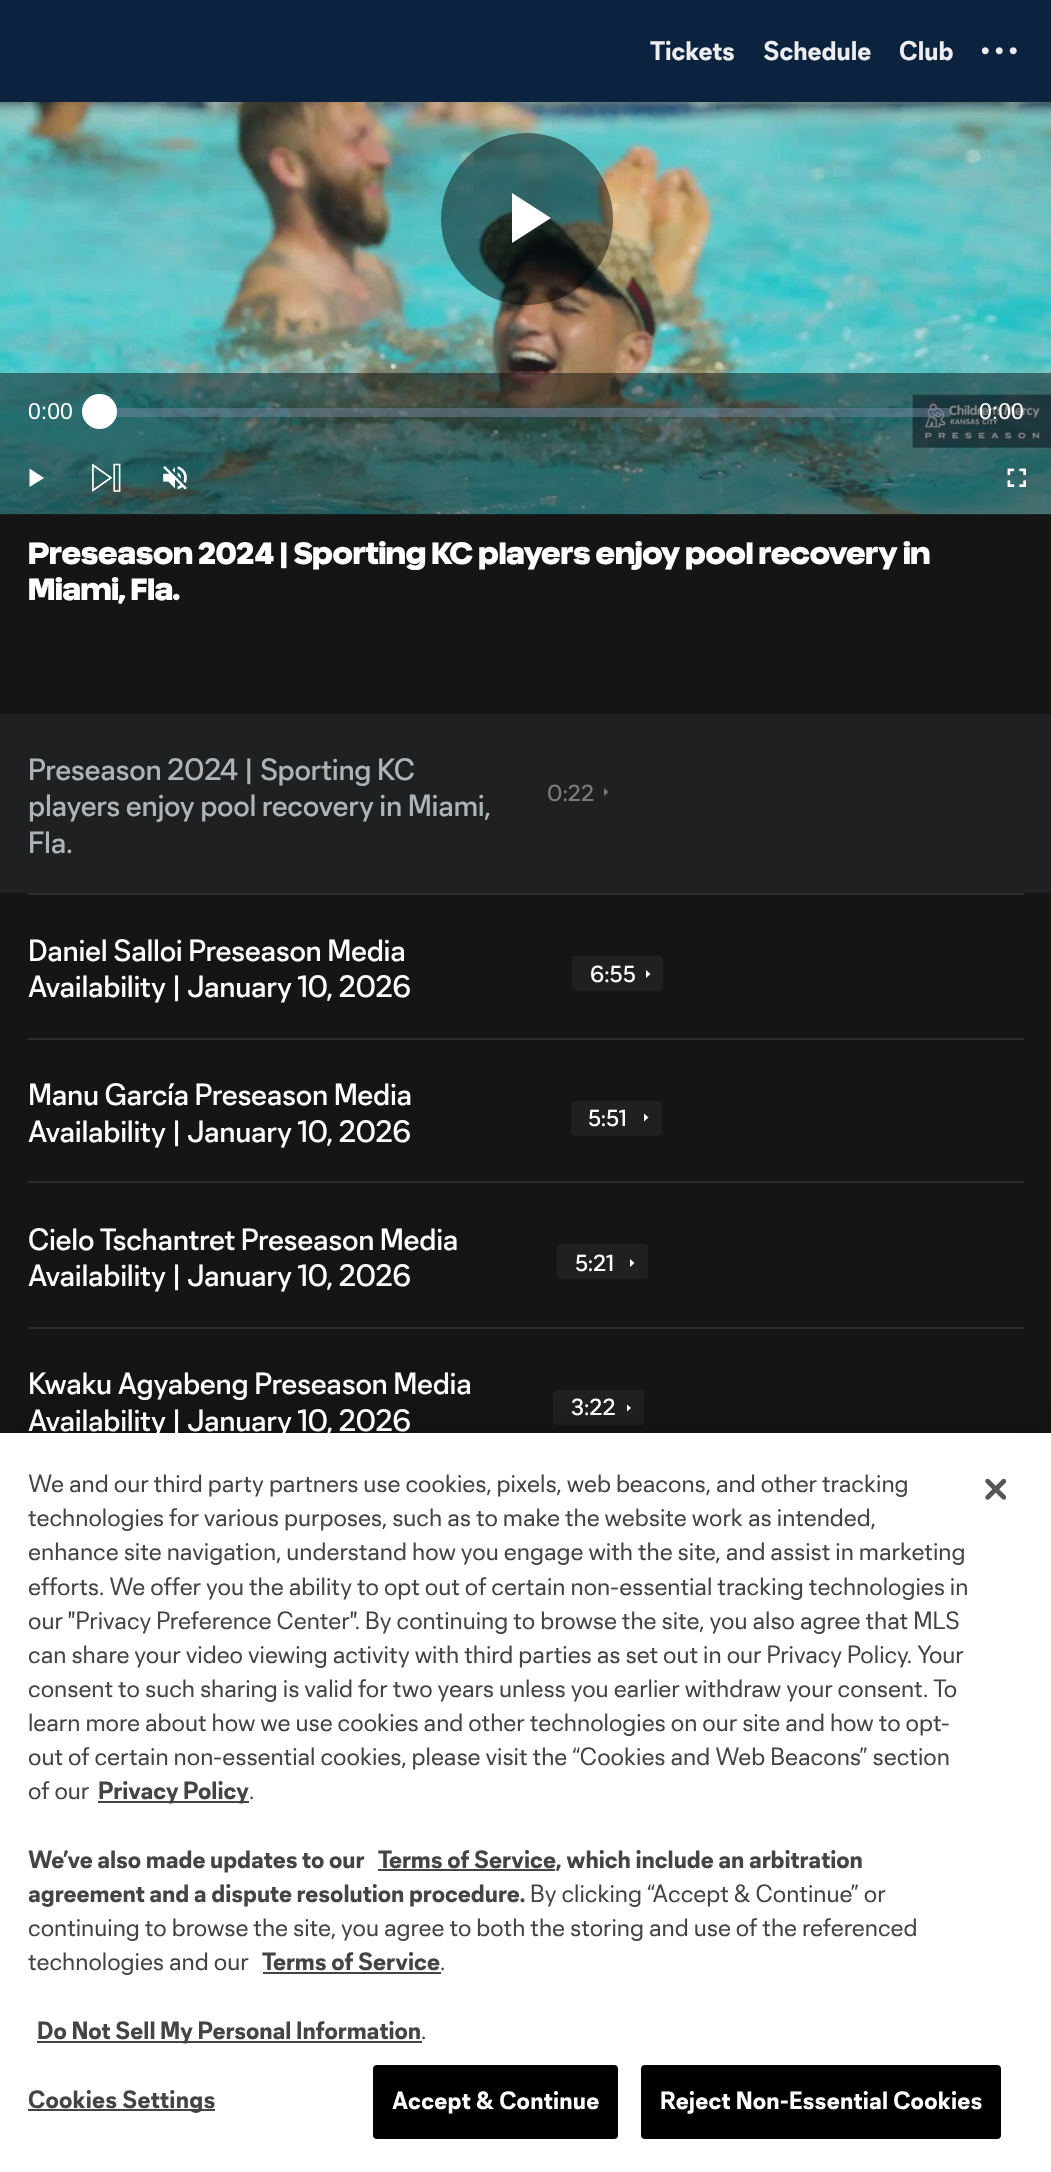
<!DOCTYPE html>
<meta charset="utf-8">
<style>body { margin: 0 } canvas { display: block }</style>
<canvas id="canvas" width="1051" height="2172"></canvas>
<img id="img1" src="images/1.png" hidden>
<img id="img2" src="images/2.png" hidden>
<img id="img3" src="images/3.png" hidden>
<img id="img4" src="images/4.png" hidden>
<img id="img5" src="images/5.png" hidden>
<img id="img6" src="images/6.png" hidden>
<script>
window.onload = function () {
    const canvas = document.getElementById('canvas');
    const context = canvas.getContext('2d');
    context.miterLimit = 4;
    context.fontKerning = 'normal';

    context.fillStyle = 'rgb(21, 21, 22)';
    context.fillRect(0, 0, 1051, 2172);
    context.fillStyle = 'rgb(12, 35, 64)';
    context.fillRect(0, 0, 1051, 102);
    context.drawImage(document.getElementById('img1'), 982, 47, 35, 8);
    context.fillStyle = 'rgb(21, 27, 23)';
    context.fillRect(0, 514, 1051, 1);
    context.drawImage(document.getElementById('img2'), 0, 102, 1051, 413);
    context.fillStyle = 'rgba(0, 0, 0, 0.45)';
    context.beginPath();
    context.arc(527, 219, 86, 0, 2 * Math.PI);
    context.fill();
    context.fillStyle = 'rgb(255, 255, 255)';
    context.beginPath();
    context.moveTo(512, 193);
    context.lineTo(512, 243);
    context.lineTo(551, 218);
    context.closePath();
    context.fill();
    context.fillStyle = 'rgba(0, 0, 0, 0.45)';
    context.fillRect(0, 373, 1051, 142);
    context.fillStyle = 'rgba(115, 133, 159, 0.5)';
    context.beginPath();
    context.roundRect(100, 408, 852, 9, 4.5);
    context.fill();
    context.fillStyle = 'rgb(255, 255, 255)';
    context.beginPath();
    context.arc(99.5, 411.5, 17.5, 0, 2 * Math.PI);
    context.fill();
    context.beginPath();
    context.moveTo(29.5, 468.5);
    context.lineTo(29.5, 487);
    context.lineTo(44, 478);
    context.closePath();
    context.fill();
    context.drawImage(document.getElementById('img3'), 92, 463, 29, 29);
    context.drawImage(document.getElementById('img4'), 163, 466, 24, 24);
    context.drawImage(document.getElementById('img5'), 1007, 468, 19, 19);
    context.fillStyle = 'rgb(31, 32, 33)';
    context.fillRect(0, 714, 1051, 179);
    context.fillStyle = 'rgb(121, 121, 122)';
    context.beginPath();
    context.moveTo(604, 788);
    context.lineTo(604, 796);
    context.lineTo(608.5, 792);
    context.closePath();
    context.fill('evenodd');
    context.fillStyle = 'rgb(44, 44, 45)';
    context.fillRect(28, 893, 996, 2);
    context.fillStyle = 'rgb(31, 32, 33)';
    context.beginPath();
    context.roundRect(572, 956, 91, 35, 4);
    context.fill();
    context.fillStyle = 'rgb(255, 255, 255)';
    context.beginPath();
    context.moveTo(646, 970);
    context.lineTo(646, 978);
    context.lineTo(650.5, 974);
    context.closePath();
    context.fill('evenodd');
    context.fillStyle = 'rgb(44, 44, 45)';
    context.fillRect(28, 1038, 996, 2);
    context.fillStyle = 'rgb(31, 32, 33)';
    context.beginPath();
    context.roundRect(571, 1101, 91, 35, 4);
    context.fill();
    context.fillStyle = 'rgb(255, 255, 255)';
    context.beginPath();
    context.moveTo(644, 1113.5);
    context.lineTo(644, 1121.5);
    context.lineTo(648.5, 1117.5);
    context.closePath();
    context.fill('evenodd');
    context.fillStyle = 'rgb(44, 44, 45)';
    context.fillRect(28, 1181, 996, 2);
    context.fillStyle = 'rgb(31, 32, 33)';
    context.beginPath();
    context.roundRect(557, 1244, 91, 35, 4);
    context.fill();
    context.fillStyle = 'rgb(255, 255, 255)';
    context.beginPath();
    context.moveTo(630, 1259);
    context.lineTo(630, 1267);
    context.lineTo(634.5, 1263);
    context.closePath();
    context.fill('evenodd');
    context.fillStyle = 'rgb(44, 44, 45)';
    context.fillRect(28, 1327, 996, 2);
    context.fillStyle = 'rgb(31, 32, 33)';
    context.beginPath();
    context.roundRect(553, 1390, 91, 35, 4);
    context.fill();
    context.save();
    context.beginPath();
    context.rect(627, 1404, 5, 10);
    context.clip();
    context.fillStyle = 'rgb(255, 255, 255)';
    context.beginPath();
    context.moveTo(626.5, 1404);
    context.lineTo(626.5, 1412);
    context.lineTo(631, 1408);
    context.closePath();
    context.fill('evenodd');
    context.restore();
    context.fillStyle = 'rgba(0, 0, 0, 0.2)';
    context.filter = 'blur(16px)';
    context.beginPath();
    context.rect(0, 1433, 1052, 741);
    context.fill();
    context.filter = 'none';
    context.fillStyle = 'rgb(255, 255, 255)';
    context.fillRect(0, 1433, 1051, 739);
    context.fillStyle = 'rgb(68, 68, 68)';
    context.fillRect(98, 1801, 151, 2);
    context.fillRect(378, 1869, 177, 2);
    context.fillRect(263, 1972, 178, 2);
    context.fillRect(37, 2041, 385, 2);
    context.fillRect(28, 2109, 187, 2);
    context.fillStyle = 'rgb(0, 0, 0)';
    context.beginPath();
    context.roundRect(374, 2066, 243, 72, 3);
    context.fill();
    context.strokeStyle = 'rgb(0, 0, 0)';
    context.lineWidth = 2;
    context.stroke();
    context.beginPath();
    context.roundRect(642, 2066, 358, 72, 3);
    context.fill();
    context.stroke();
    context.drawImage(document.getElementById('img6'), 985, 1479, 21, 21);
    context.font = 'bold 24.5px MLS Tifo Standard';
    context.fillStyle = 'rgb(237, 237, 237)';
    context.fillText('Tickets', 650, 60);
    context.fillText('Schedule', 763, 60);
    context.fillText('Club', 899, 60);
    context.font = '23px Liberation Sans';
    context.fillStyle = 'rgb(255, 255, 255)';
    context.fillText('0:00', 28, 419);
    context.fillText('0:00', 979, 419);
    context.letterSpacing = '-0.28px';
    context.font = '800 28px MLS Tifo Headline';
    context.fillText('Preseason 2024 | Sporting KC players enjoy pool recovery in', 28, 564);
    context.fillText('Miami, Fla.', 28, 600);
    context.font = '500 28px MLS Tifo Standard';
    context.fillStyle = 'rgb(173, 180, 183)';
    context.fillText('Preseason 2024 | Sporting KC', 28, 780);
    context.fillText('players enjoy pool recovery in Miami,', 28, 816);
    context.fillText('Fla.', 28, 853);
    context.letterSpacing = '0px';
    context.font = '500 21px MLS Tifo Standard';
    context.fillStyle = 'rgb(121, 121, 122)';
    context.fillText('0:22', 547, 801);
    context.letterSpacing = '-0.28px';
    context.font = '500 28px MLS Tifo Standard';
    context.fillStyle = 'rgb(255, 255, 255)';
    context.fillText('Daniel Salloi Preseason Media', 28, 961);
    context.fillText('Availability | January 10, 2026', 28, 997);
    context.letterSpacing = '0px';
    context.font = '500 21px MLS Tifo Standard';
    context.fillText('6:55', 590, 982);
    context.letterSpacing = '-0.28px';
    context.font = '500 28px MLS Tifo Standard';
    context.fillText('Manu García Preseason Media', 28, 1105);
    context.fillText('Availability | January 10, 2026', 28, 1142);
    context.letterSpacing = '0px';
    context.font = '500 21px MLS Tifo Standard';
    context.fillText('5:51', 588, 1126);
    context.letterSpacing = '-0.28px';
    context.font = '500 28px MLS Tifo Standard';
    context.fillText('Cielo Tschantret Preseason Media', 28, 1250);
    context.fillText('Availability | January 10, 2026', 28, 1286);
    context.letterSpacing = '0px';
    context.font = '500 21px MLS Tifo Standard';
    context.fillText('5:21', 575, 1271);
    context.letterSpacing = '-0.28px';
    context.font = '500 28px MLS Tifo Standard';
    context.fillText('Kwaku Agyabeng Preseason Media', 28, 1394);
    context.fillText('Availability | January 10, 2026', 28, 1431);
    context.letterSpacing = '0px';
    context.font = '500 21px MLS Tifo Standard';
    context.fillText('3:22', 571, 1415);
    context.font = '22.75px MLS Tifo Standard';
    context.fillStyle = 'rgb(68, 68, 68)';
    context.fillText('We and our third party partners use cookies, pixels, web beacons, and other tracking', 28, 1492);
    context.fillText('technologies for various purposes, such as to make the website work as intended,', 28, 1526);
    context.fillText('enhance site navigation, understand how you engage with the site, and assist in marketing', 28, 1560);
    context.fillText('efforts. We offer you the ability to opt out of certain non-essential tracking technologies in', 28, 1595);
    context.fillText('our "Privacy Preference Center". By continuing to browse the site, you also agree that MLS', 28, 1629);
    context.fillText('can share your video viewing activity with third parties as set out in our Privacy Policy. Your', 28, 1663);
    context.fillText('consent to such sharing is valid for two years unless you earlier withdraw your consent. To', 28, 1697);
    context.fillText('learn more about how we use cookies and other technologies on our site and how to opt-', 28, 1731);
    context.fillText('out of certain non-essential cookies, please visit the “Cookies and Web Beacons” section', 28, 1765);
    context.fillText('of our', 28, 1799);
    context.font = 'bold 22.75px MLS Tifo Standard';
    context.fillText('Privacy Policy', 98, 1799);
    context.font = '22.75px MLS Tifo Standard';
    context.fillText('.', 249, 1799);
    context.font = 'bold 22.75px MLS Tifo Standard';
    context.fillText('We’ve also made updates to our', 28, 1868);
    context.fillText('Terms of Service, which include an arbitration', 378, 1868);
    context.fillText('agreement and a dispute resolution procedure.', 28, 1902);
    context.font = '22.75px MLS Tifo Standard';
    context.fillText('By clicking “Accept & Continue” or', 530, 1902);
    context.fillText('continuing to browse the site, you agree to both the storing and use of the referenced', 28, 1936);
    context.fillText('technologies and our', 28, 1970);
    context.font = 'bold 22.75px MLS Tifo Standard';
    context.fillText('Terms of Service', 262, 1970);
    context.font = '22.75px MLS Tifo Standard';
    context.fillText('.', 440, 1970);
    context.font = 'bold 22.75px MLS Tifo Standard';
    context.fillText('Do Not Sell My Personal Information', 37, 2039);
    context.font = '22.75px MLS Tifo Standard';
    context.fillText('.', 421, 2039);
    context.letterSpacing = '0.25px';
    context.font = 'bold 22.75px MLS Tifo Standard';
    context.fillText('Cookies Settings', 28, 2108);
    context.fillStyle = 'rgb(255, 255, 255)';
    context.fillText('Accept & Continue', 392, 2109);
    context.fillText('Reject Non-Essential Cookies', 660, 2109);
};
</script>
